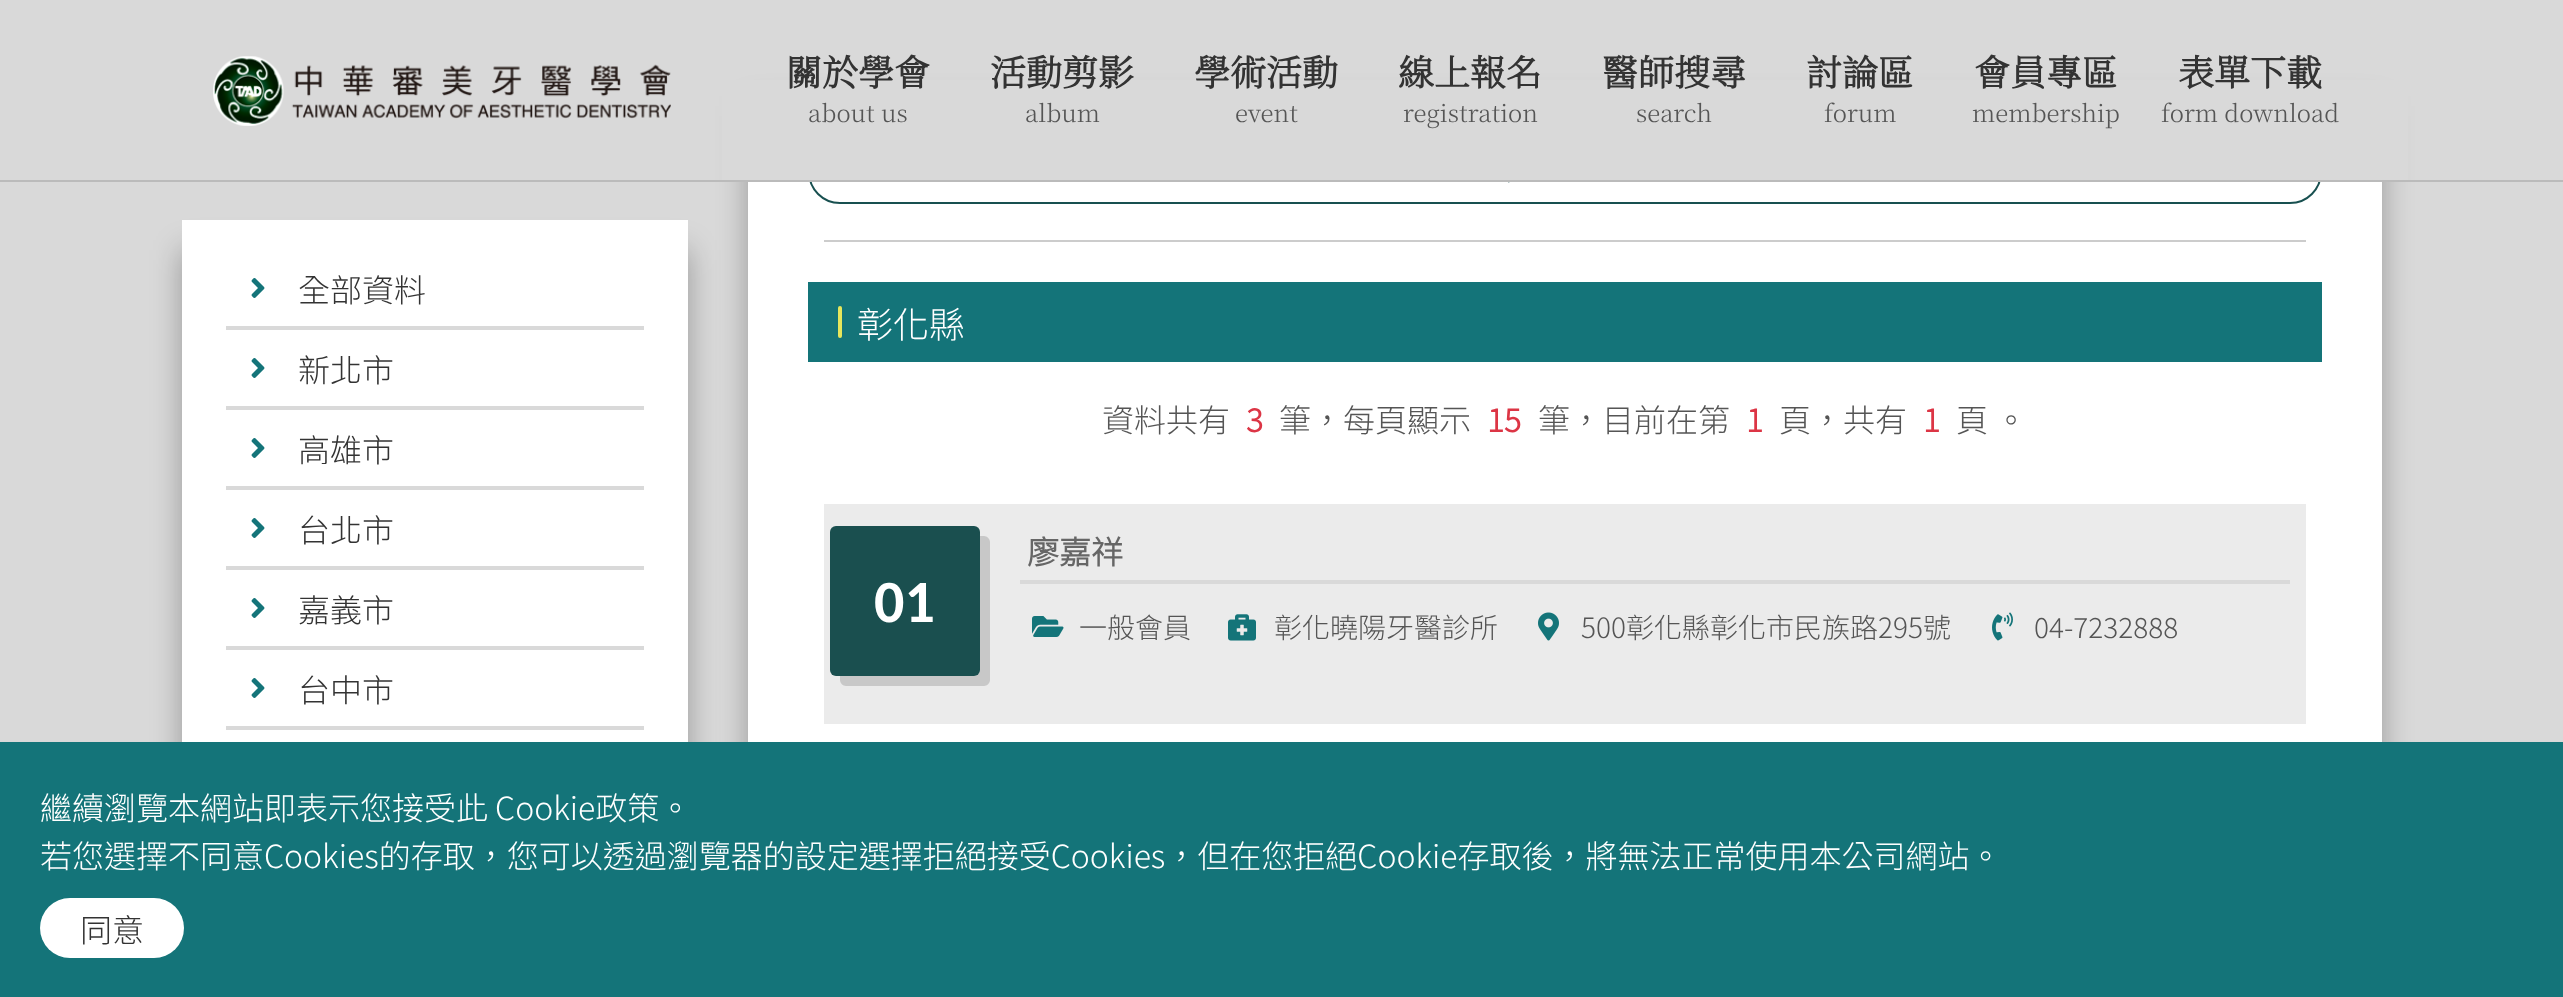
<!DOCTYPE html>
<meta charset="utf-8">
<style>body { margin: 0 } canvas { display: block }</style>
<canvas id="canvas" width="2563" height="997"></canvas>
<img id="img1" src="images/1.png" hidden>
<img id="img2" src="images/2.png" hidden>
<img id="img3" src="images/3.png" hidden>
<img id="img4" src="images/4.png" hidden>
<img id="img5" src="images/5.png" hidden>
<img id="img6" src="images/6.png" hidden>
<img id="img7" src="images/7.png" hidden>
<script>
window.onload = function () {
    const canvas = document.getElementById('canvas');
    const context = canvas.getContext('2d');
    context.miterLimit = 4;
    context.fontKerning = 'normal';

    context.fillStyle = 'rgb(217, 217, 217)';
    context.fillRect(0, 0, 2563, 997);
    context.fillStyle = 'rgba(0, 0, 0, 0.3)';
    context.filter = 'blur(15px)';
    context.beginPath();
    context.rect(748, 106, 1634, 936);
    context.fill();
    context.filter = 'none';
    context.fillStyle = 'rgb(255, 255, 255)';
    context.fillRect(748, 182, 1634, 560);
    context.beginPath();
    context.roundRect(809, 137, 1512, 66, 31);
    context.strokeStyle = 'rgb(24, 80, 80)';
    context.lineWidth = 2;
    context.stroke();
    context.fillStyle = 'rgb(217, 217, 217)';
    context.fillRect(722, 80, 1686, 100);
    context.fillStyle = 'rgb(187, 187, 187)';
    context.fillRect(0, 180, 2563, 2);
    context.drawImage(document.getElementById('img1'), 213, 56, 458, 70);
    context.fillStyle = 'rgba(0, 0, 0, 0.3)';
    context.filter = 'blur(15px)';
    context.beginPath();
    context.rect(182, 250, 506, 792);
    context.fill();
    context.filter = 'none';
    context.fillStyle = 'rgb(255, 255, 255)';
    context.fillRect(182, 220, 506, 522);
    context.drawImage(document.getElementById('img2'), 251, 278, 14, 20);
    context.fillStyle = 'rgb(217, 217, 217)';
    context.fillRect(226, 326, 418, 4);
    context.drawImage(document.getElementById('img2'), 251, 358, 14, 20);
    context.fillRect(226, 406, 418, 4);
    context.drawImage(document.getElementById('img2'), 251, 438, 14, 20);
    context.fillRect(226, 486, 418, 4);
    context.drawImage(document.getElementById('img2'), 251, 518, 14, 20);
    context.fillRect(226, 566, 418, 4);
    context.drawImage(document.getElementById('img2'), 251, 598, 14, 20);
    context.fillRect(226, 646, 418, 4);
    context.drawImage(document.getElementById('img2'), 251, 678, 14, 20);
    context.fillRect(226, 726, 418, 4);
    context.drawImage(document.getElementById('img3'), 1508, 182, 2, 1);
    context.fillStyle = 'rgb(204, 204, 204)';
    context.fillRect(824, 240, 1482, 2);
    context.fillStyle = 'rgb(20, 116, 121)';
    context.fillRect(808, 282, 1514, 80);
    context.fillStyle = 'rgb(230, 230, 92)';
    context.beginPath();
    context.roundRect(838, 306, 4, 32, 2);
    context.fill();
    context.fillStyle = 'rgb(235, 235, 235)';
    context.fillRect(824, 504, 1482, 220);
    context.fillStyle = 'rgb(200, 200, 200)';
    context.beginPath();
    context.moveTo(840, 676);
    context.lineTo(840, 680);
    context.bezierCurveTo(840, 683, 843, 686, 846, 686);
    context.lineTo(984, 686);
    context.bezierCurveTo(987, 686, 990, 683, 990, 680);
    context.lineTo(990, 542);
    context.bezierCurveTo(990, 539, 987, 536, 984, 536);
    context.lineTo(980, 536);
    context.lineTo(980, 670);
    context.bezierCurveTo(980, 673, 977, 676, 974, 676);
    context.closePath();
    context.fill();
    context.fillStyle = 'rgb(26, 79, 79)';
    context.beginPath();
    context.roundRect(830, 526, 150, 150, 6);
    context.fill();
    context.fillStyle = 'rgb(217, 217, 217)';
    context.fillRect(1020, 580, 1270, 4);
    context.drawImage(document.getElementById('img4'), 1032, 616, 32, 21);
    context.drawImage(document.getElementById('img5'), 1228, 614, 28, 27);
    context.drawImage(document.getElementById('img6'), 1538, 612, 21, 29);
    context.drawImage(document.getElementById('img7'), 1992, 612, 21, 29);
    context.fillStyle = 'rgb(20, 116, 121)';
    context.fillRect(0, 742, 2563, 255);
    context.fillStyle = 'rgb(255, 255, 255)';
    context.beginPath();
    context.roundRect(40, 898, 144, 60, 30);
    context.fill();
    context.font = 'bold 36px Noto Serif TC';
    context.fillStyle = 'rgb(51, 51, 51)';
    context.fillText('關於學會', 786, 86);
    context.font = '200 24px Noto Serif TC';
    context.fillStyle = 'rgb(85, 85, 85)';
    context.fillText('about us', 808, 122);
    context.font = 'bold 36px Noto Serif TC';
    context.fillStyle = 'rgb(51, 51, 51)';
    context.fillText('活動剪影', 990, 86);
    context.font = '200 24px Noto Serif TC';
    context.fillStyle = 'rgb(85, 85, 85)';
    context.fillText('album', 1025, 122);
    context.font = 'bold 36px Noto Serif TC';
    context.fillStyle = 'rgb(51, 51, 51)';
    context.fillText('學術活動', 1194, 86);
    context.font = '200 24px Noto Serif TC';
    context.fillStyle = 'rgb(85, 85, 85)';
    context.fillText('event', 1235, 122);
    context.font = 'bold 36px Noto Serif TC';
    context.fillStyle = 'rgb(51, 51, 51)';
    context.fillText('線上報名', 1398, 86);
    context.font = '200 24px Noto Serif TC';
    context.fillStyle = 'rgb(85, 85, 85)';
    context.fillText('registration', 1403, 122);
    context.font = 'bold 36px Noto Serif TC';
    context.fillStyle = 'rgb(51, 51, 51)';
    context.fillText('醫師搜尋', 1602, 86);
    context.font = '200 24px Noto Serif TC';
    context.fillStyle = 'rgb(85, 85, 85)';
    context.fillText('search', 1636, 122);
    context.font = 'bold 36px Noto Serif TC';
    context.fillStyle = 'rgb(51, 51, 51)';
    context.fillText('討論區', 1806, 86);
    context.font = '200 24px Noto Serif TC';
    context.fillStyle = 'rgb(85, 85, 85)';
    context.fillText('forum', 1824, 122);
    context.font = 'bold 36px Noto Serif TC';
    context.fillStyle = 'rgb(51, 51, 51)';
    context.fillText('會員專區', 1974, 86);
    context.font = '200 24px Noto Serif TC';
    context.fillStyle = 'rgb(85, 85, 85)';
    context.fillText('membership', 1972, 122);
    context.font = 'bold 36px Noto Serif TC';
    context.fillStyle = 'rgb(51, 51, 51)';
    context.fillText('表單下載', 2178, 86);
    context.font = '200 24px Noto Serif TC';
    context.fillStyle = 'rgb(85, 85, 85)';
    context.fillText('form download', 2161, 122);
    context.font = '100 32px Noto Sans TC';
    context.fillStyle = 'rgb(51, 51, 51)';
    context.fillText('全部資料', 298, 302);
    context.fillText('新北市', 298, 382);
    context.fillText('高雄市', 298, 462);
    context.fillText('台北市', 298, 542);
    context.fillText('嘉義市', 298, 622);
    context.fillText('台中市', 298, 702);
    context.font = '100 36px Noto Sans TC';
    context.fillStyle = 'rgb(255, 255, 255)';
    context.fillText('彰化縣', 857, 338);
    context.font = '100 32px Noto Sans TC';
    context.fillStyle = 'rgb(85, 85, 85)';
    context.fillText('資料共有', 1102, 432);
    context.font = 'bold 32px Noto Sans TC';
    context.fillStyle = 'rgb(220, 53, 69)';
    context.fillText('3', 1246, 432);
    context.font = '100 32px Noto Sans TC';
    context.fillStyle = 'rgb(85, 85, 85)';
    context.fillText('筆，每頁顯示', 1279, 432);
    context.font = 'bold 32px Noto Sans TC';
    context.fillStyle = 'rgb(220, 53, 69)';
    context.fillText('15', 1487, 432);
    context.font = '100 32px Noto Sans TC';
    context.fillStyle = 'rgb(85, 85, 85)';
    context.fillText('筆，目前在第', 1538, 432);
    context.font = 'bold 32px Noto Sans TC';
    context.fillStyle = 'rgb(220, 53, 69)';
    context.fillText('1', 1746, 432);
    context.font = '100 32px Noto Sans TC';
    context.fillStyle = 'rgb(85, 85, 85)';
    context.fillText('頁，共有', 1779, 432);
    context.font = 'bold 32px Noto Sans TC';
    context.fillStyle = 'rgb(220, 53, 69)';
    context.fillText('1', 1923, 432);
    context.font = '100 32px Noto Sans TC';
    context.fillStyle = 'rgb(85, 85, 85)';
    context.fillText('頁 。', 1956, 432);
    context.font = 'bold 60px Carlito';
    context.fillStyle = 'rgb(255, 255, 255)';
    context.fillText('01', 874, 622);
    context.font = 'bold 32px Noto Sans TC';
    context.fillStyle = 'rgb(102, 102, 102)';
    context.fillText('廖嘉祥', 1027, 564);
    context.font = '100 28px Noto Sans TC';
    context.fillStyle = 'rgb(85, 85, 85)';
    context.fillText('一般會員', 1079, 638);
    context.fillText('彰化曉陽牙醫診所', 1274, 638);
    context.fillText('500彰化縣彰化市民族路295號', 1581, 638);
    context.fillText('04-7232888', 2034, 638);
    context.font = '100 32px Noto Sans TC';
    context.fillStyle = 'rgb(255, 255, 255)';
    context.fillText('繼續瀏覽本網站即表示您接受此 Cookie政策。', 40, 820);
    context.fillText('若您選擇不同意Cookies的存取，您可以透過瀏覽器的設定選擇拒絕接受Cookies，但在您拒絕Cookie存取後，將無法正常使用本公司網站。', 40, 868);
    context.fillStyle = 'rgb(51, 51, 51)';
    context.fillText('同意', 80, 942);
};
</script>
